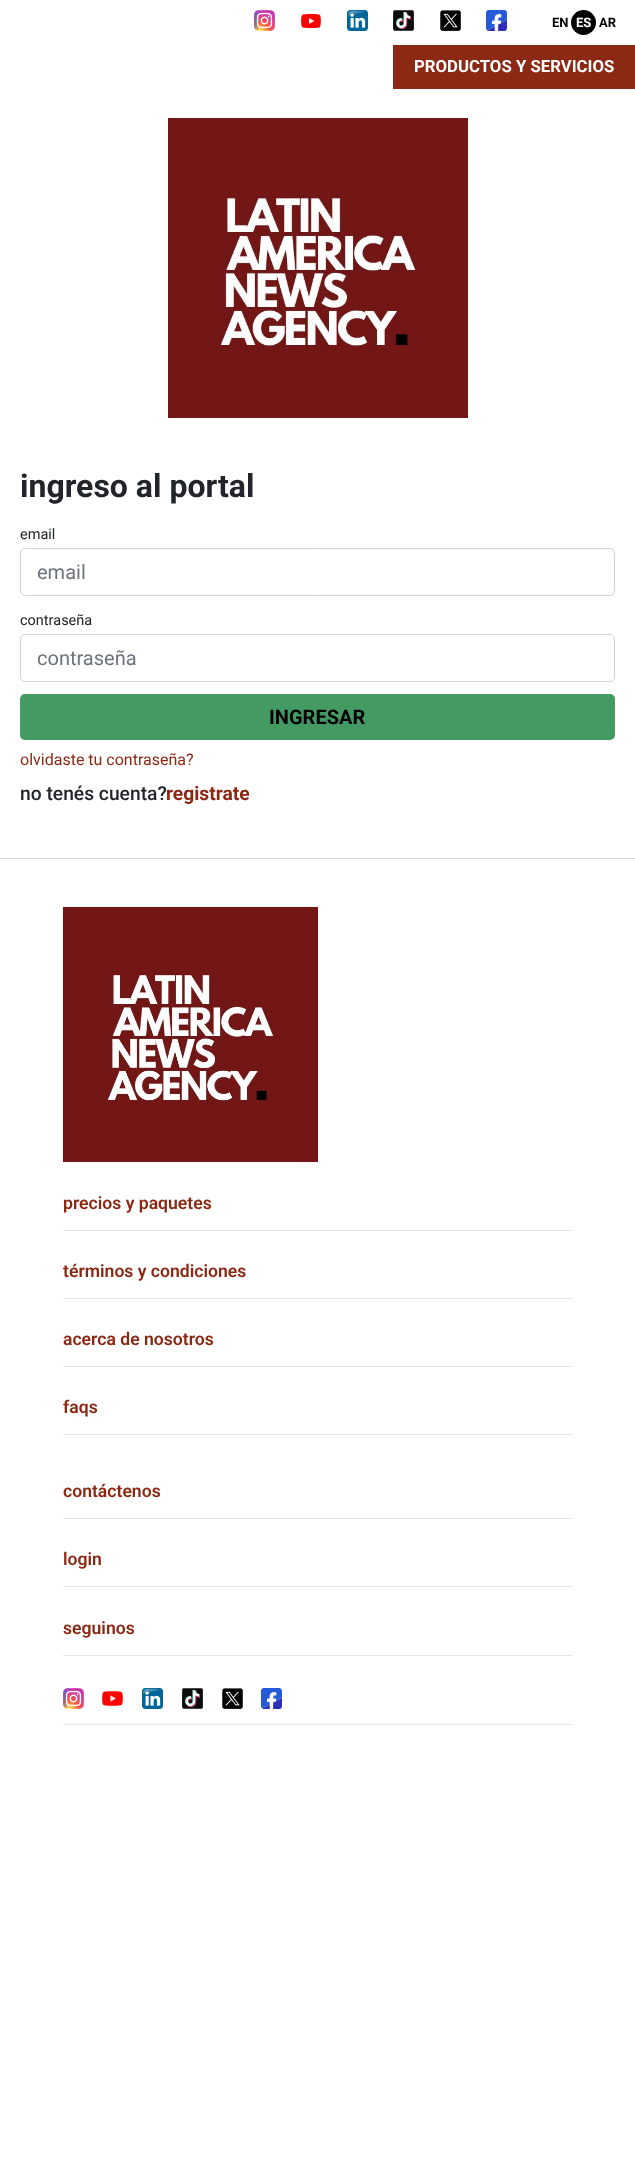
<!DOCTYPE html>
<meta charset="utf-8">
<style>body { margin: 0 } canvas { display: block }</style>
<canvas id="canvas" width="635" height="2184"></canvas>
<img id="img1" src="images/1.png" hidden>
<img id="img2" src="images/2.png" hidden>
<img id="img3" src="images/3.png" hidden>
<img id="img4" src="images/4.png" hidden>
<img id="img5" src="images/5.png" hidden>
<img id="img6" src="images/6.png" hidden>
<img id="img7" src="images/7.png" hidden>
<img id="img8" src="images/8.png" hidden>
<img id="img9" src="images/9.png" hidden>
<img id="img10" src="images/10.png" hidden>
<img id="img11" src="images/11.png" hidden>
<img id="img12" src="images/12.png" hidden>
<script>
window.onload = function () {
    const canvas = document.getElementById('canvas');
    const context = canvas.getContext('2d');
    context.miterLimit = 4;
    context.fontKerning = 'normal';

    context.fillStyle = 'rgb(255, 255, 255)';
    context.fillRect(0, 0, 635, 2184);
    context.drawImage(document.getElementById('img1'), 254, 10, 21, 21);
    context.drawImage(document.getElementById('img2'), 301, 14, 20, 14);
    context.drawImage(document.getElementById('img3'), 347, 10, 21, 21);
    context.drawImage(document.getElementById('img4'), 393, 10, 21, 21);
    context.drawImage(document.getElementById('img5'), 440, 10, 21, 21);
    context.drawImage(document.getElementById('img6'), 486, 10, 21, 21);
    context.fillStyle = 'rgb(0, 0, 0)';
    context.beginPath();
    context.arc(583.5, 22.5, 12.5, 0, 2 * Math.PI);
    context.fill();
    context.fillStyle = 'rgb(140, 41, 20)';
    context.fillRect(393, 45, 242, 44);
    context.drawImage(document.getElementById('img7'), 168, 118, 300, 300);
    context.fillStyle = 'rgb(212, 212, 212)';
    context.fillRect(0, 858, 635, 1);
    context.beginPath();
    context.roundRect(20.5, 548.5, 594, 47, 4.5);
    context.strokeStyle = 'rgb(206, 212, 218)';
    context.stroke();
    context.beginPath();
    context.roundRect(20.5, 634.5, 594, 47, 4.5);
    context.stroke();
    context.fillStyle = 'rgb(67, 154, 99)';
    context.beginPath();
    context.roundRect(20, 694, 595, 46, 5);
    context.fill();
    context.drawImage(document.getElementById('img8'), 63, 907, 255, 255);
    context.fillStyle = 'rgb(230, 230, 230)';
    context.fillRect(63, 1230, 510, 1);
    context.fillRect(63, 1298, 510, 1);
    context.fillRect(63, 1366, 510, 1);
    context.fillRect(63, 1434, 510, 1);
    context.fillRect(63, 1518, 510, 1);
    context.fillRect(63, 1586, 510, 1);
    context.fillRect(63, 1655, 510, 1);
    context.fillRect(63, 1724, 510, 1);
    context.drawImage(document.getElementById('img1'), 63, 1688, 21, 21);
    context.drawImage(document.getElementById('img9'), 102, 1691, 21, 15);
    context.drawImage(document.getElementById('img10'), 142, 1688, 21, 21);
    context.drawImage(document.getElementById('img11'), 182, 1688, 21, 21);
    context.drawImage(document.getElementById('img5'), 222, 1688, 21, 21);
    context.drawImage(document.getElementById('img12'), 261, 1688, 21, 21);
    context.font = 'bold 13px Roboto';
    context.fillStyle = 'rgb(0, 0, 0)';
    context.fillText('EN', 552, 27);
    context.fillStyle = 'rgb(255, 255, 255)';
    context.fillText('ES', 576, 27);
    context.fillStyle = 'rgb(0, 0, 0)';
    context.fillText('AR', 599, 27);
    context.font = 'bold 16.75px Roboto';
    context.fillStyle = 'rgb(255, 255, 255)';
    context.fillText('PRODUCTOS Y SERVICIOS', 414, 72);
    context.font = 'bold 32px Roboto';
    context.fillStyle = 'rgb(33, 37, 41)';
    context.fillText('ingreso al portal', 20, 497);
    context.font = '14.5px Roboto';
    context.fillText('email', 20, 539);
    context.font = '20px Roboto';
    context.fillStyle = 'rgb(108, 117, 125)';
    context.fillText('email', 37, 579);
    context.font = '14.5px Roboto';
    context.fillStyle = 'rgb(33, 37, 41)';
    context.fillText('contraseña', 20, 625);
    context.font = '20px Roboto';
    context.fillStyle = 'rgb(108, 117, 125)';
    context.fillText('contraseña', 37, 665);
    context.font = 'bold 20px Roboto';
    context.fillStyle = 'rgb(0, 0, 0)';
    context.fillText('INGRESAR', 269, 724);
    context.font = '16px Roboto';
    context.fillStyle = 'rgb(139, 40, 19)';
    context.fillText('olvidaste tu contraseña?', 20, 765);
    context.font = '500 19.25px Roboto';
    context.fillStyle = 'rgb(33, 37, 41)';
    context.fillText('no tenés cuenta?', 20, 800);
    context.font = 'bold 19.25px Roboto';
    context.fillStyle = 'rgb(139, 40, 19)';
    context.fillText('registrate', 166, 800);
    context.font = '600 17.6px Roboto';
    context.fillText('precios y paquetes', 63, 1209);
    context.fillText('términos y condiciones', 63, 1277);
    context.fillText('acerca de nosotros', 63, 1345);
    context.fillText('faqs', 63, 1413);
    context.fillText('contáctenos', 63, 1497);
    context.fillText('login', 63, 1565);
    context.fillText('seguinos', 63, 1634);
};
</script>
